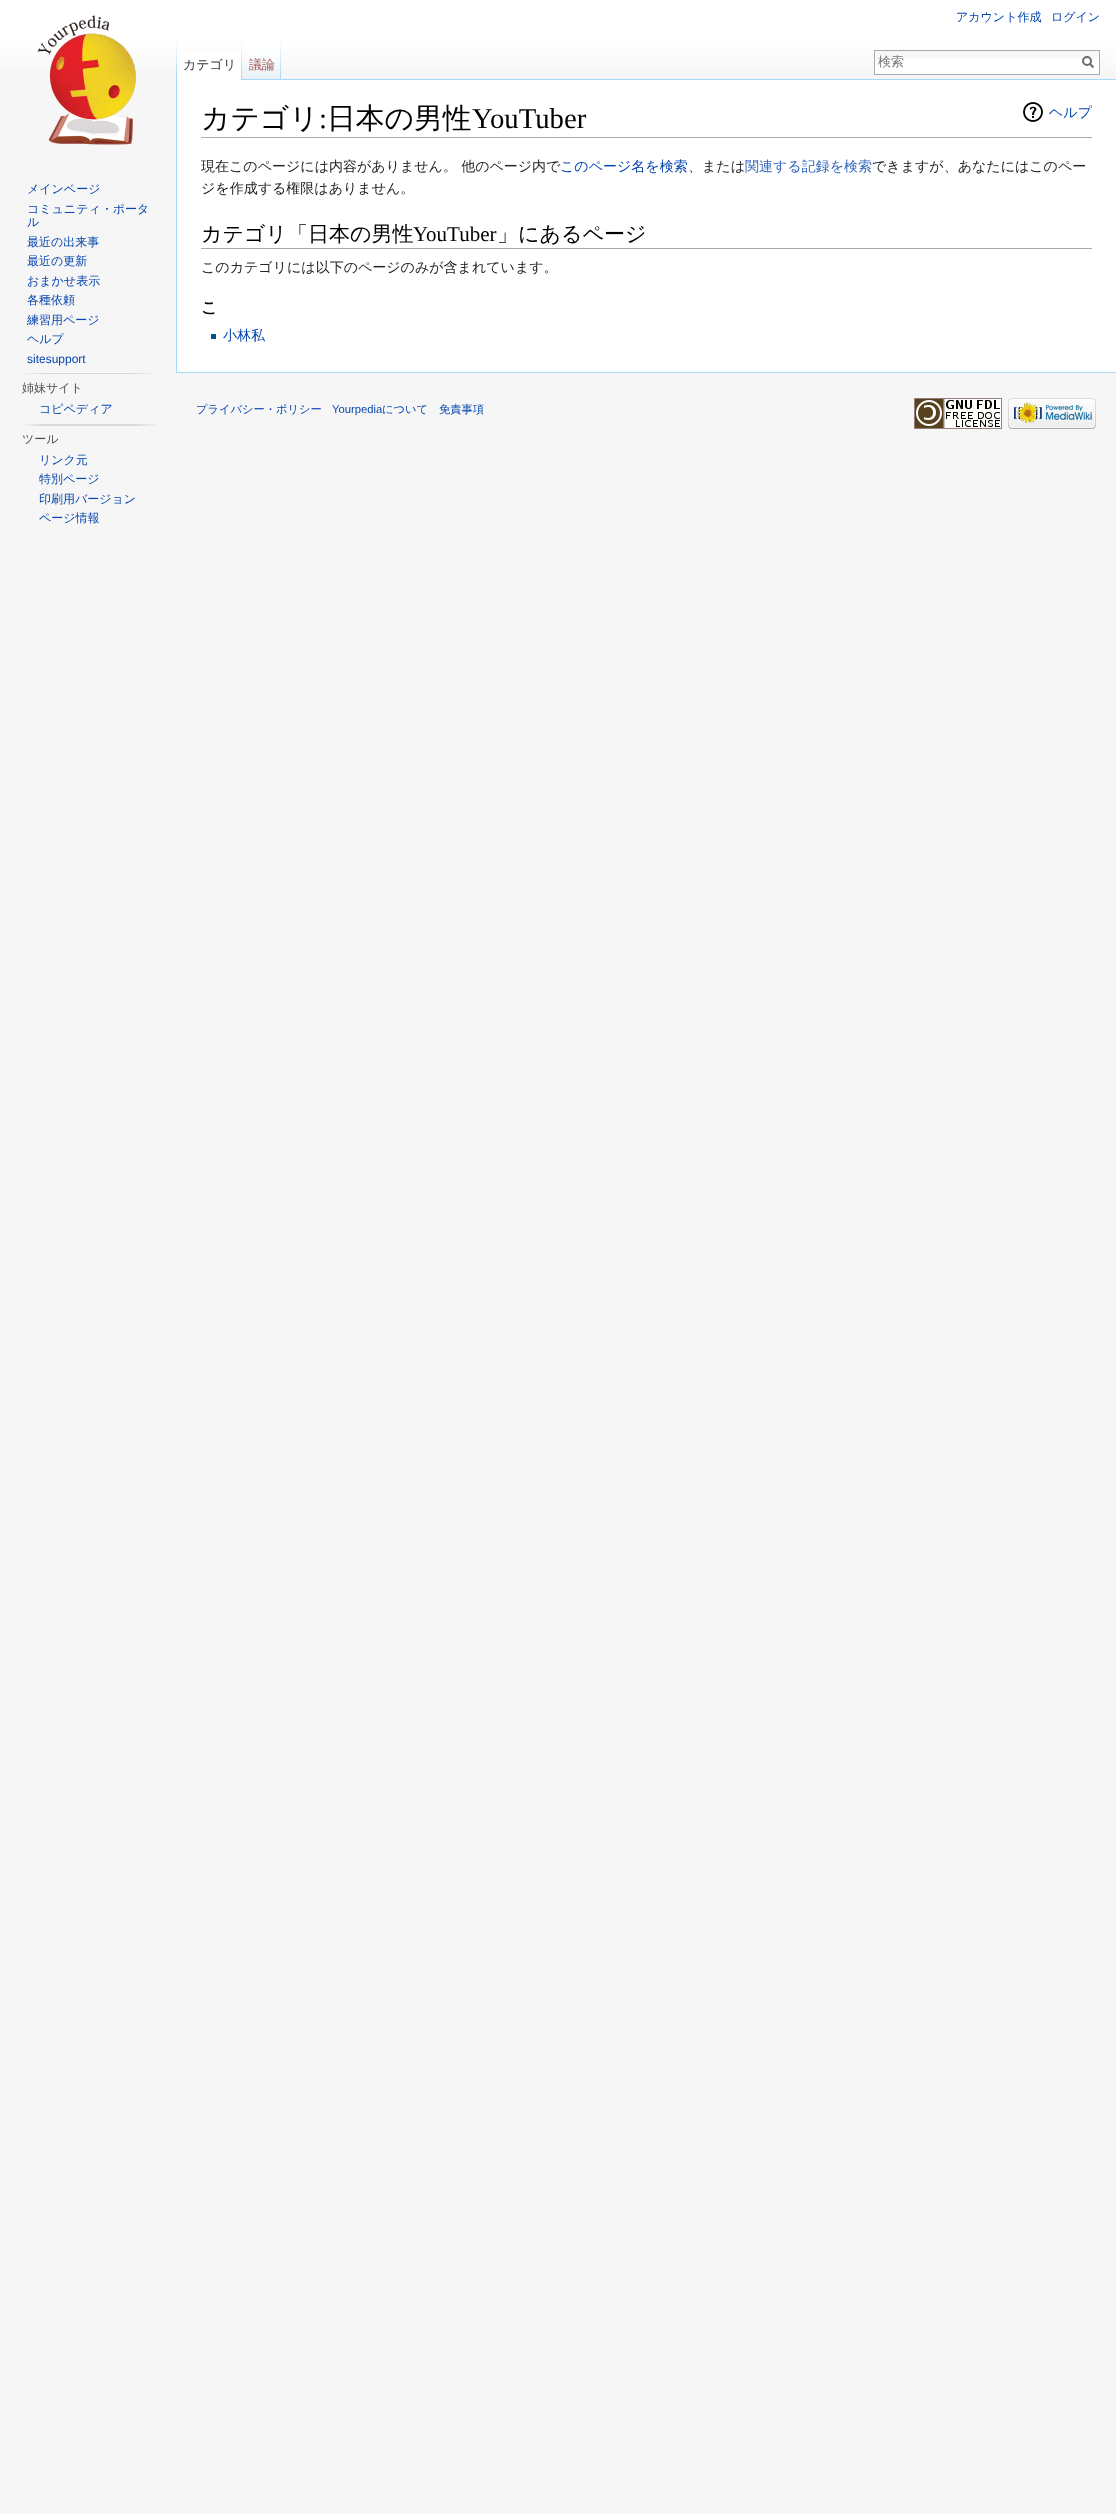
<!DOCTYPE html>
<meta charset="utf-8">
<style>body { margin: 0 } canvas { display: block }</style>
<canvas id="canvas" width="1116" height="2514"></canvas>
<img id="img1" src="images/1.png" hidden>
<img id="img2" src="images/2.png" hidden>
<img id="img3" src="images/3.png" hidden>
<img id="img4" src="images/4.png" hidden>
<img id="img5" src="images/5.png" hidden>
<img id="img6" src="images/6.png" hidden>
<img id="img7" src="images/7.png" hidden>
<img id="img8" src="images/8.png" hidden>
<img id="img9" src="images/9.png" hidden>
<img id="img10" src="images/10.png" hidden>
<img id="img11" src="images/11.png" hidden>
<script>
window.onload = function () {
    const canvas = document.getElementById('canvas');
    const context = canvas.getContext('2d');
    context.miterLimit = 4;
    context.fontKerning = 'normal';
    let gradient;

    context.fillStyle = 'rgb(246, 246, 246)';
    context.fillRect(0, 0, 1116, 2514);
    gradient = context.createLinearGradient(558, 0, 558, 80);
    gradient.addColorStop(0.5, 'rgb(255, 255, 255)');
    gradient.addColorStop(1, 'rgb(246, 246, 246)');
    context.fillStyle = gradient;
    context.fillRect(0, 0, 1116, 69);
    context.drawImage(document.getElementById('img1'), 176, 40, 1, 39);
    context.fillStyle = 'rgb(255, 255, 255)';
    context.fillRect(177, 51, 64, 29);
    context.drawImage(document.getElementById('img2'), 241, 40, 1, 40);
    context.drawImage(document.getElementById('img3'), 242, 40, 39, 40);
    context.drawImage(document.getElementById('img4'), 280, 40, 1, 39);
    context.fillRect(875, 59, 224, 15);
    context.drawImage(document.getElementById('img5'), 875, 51, 224, 8);
    context.strokeStyle = 'rgb(170, 170, 170)';
    context.strokeRect(874.5, 50.5, 225, 24);
    context.beginPath();
    context.moveTo(1093.5, 67.5);
    context.lineTo(1089.5, 63.5);
    context.strokeStyle = 'rgb(108, 108, 108)';
    context.lineWidth = 2;
    context.stroke();
    context.beginPath();
    context.arc(1087, 61, 4, 0, 2 * Math.PI);
    context.stroke();
    context.drawImage(document.getElementById('img6'), 37, 15, 99, 130);
    context.drawImage(document.getElementById('img7'), 22, 373, 135, 1);
    context.drawImage(document.getElementById('img8'), 22, 424, 135, 2);
    context.fillRect(177, 80, 939, 292);
    context.fillStyle = 'rgb(167, 215, 249)';
    context.fillRect(281, 79, 835, 1);
    context.fillRect(176, 372, 940, 1);
    context.fillRect(176, 79, 1, 294);
    context.fillStyle = 'rgb(170, 170, 170)';
    context.fillRect(201, 137, 891, 1);
    context.drawImage(document.getElementById('img9'), 1023, 102, 20, 20);
    context.fillRect(201, 248, 891, 1);
    context.fillStyle = 'rgb(0, 82, 140)';
    context.fillRect(211, 334, 5, 5);
    context.drawImage(document.getElementById('img10'), 914, 398, 88, 31);
    context.drawImage(document.getElementById('img11'), 1008, 398, 88, 31);
    context.font = '500 12px WenQuanYi Zen Hei';
    context.fillStyle = 'rgb(6, 69, 173)';
    context.fillText('アカウント作成', 956, 21);
    context.fillText('ログイン', 1051, 21);
    context.font = '500 13px WenQuanYi Zen Hei';
    context.fillStyle = 'rgb(51, 51, 51)';
    context.fillText('カテゴリ', 183, 69);
    context.fillStyle = 'rgb(165, 88, 88)';
    context.fillText('議論', 249, 69);
    context.fillStyle = 'rgb(117, 117, 117)';
    context.fillText('検索', 878, 66);
    context.font = '500 12px WenQuanYi Zen Hei';
    context.fillStyle = 'rgb(6, 69, 173)';
    context.fillText('メインページ', 27, 193);
    context.fillText('コミュニティ・ポータ', 27, 213);
    context.fillText('ル', 27, 226);
    context.fillText('最近の出来事', 27, 246);
    context.fillText('最近の更新', 27, 265);
    context.fillText('おまかせ表示', 27, 285);
    context.fillText('各種依頼', 27, 304);
    context.fillText('練習用ページ', 27, 324);
    context.fillText('ヘルプ', 27, 343);
    context.font = '12px Liberation Sans';
    context.fillText('sitesupport', 27, 363);
    context.font = '500 12px WenQuanYi Zen Hei';
    context.fillStyle = 'rgb(77, 77, 77)';
    context.fillText('姉妹サイト', 22, 392);
    context.fillStyle = 'rgb(6, 69, 173)';
    context.fillText('コピペディア', 39, 413);
    context.fillStyle = 'rgb(77, 77, 77)';
    context.fillText('ツール', 22, 443);
    context.fillStyle = 'rgb(6, 69, 173)';
    context.fillText('リンク元', 39, 464);
    context.fillText('特別ページ', 39, 483);
    context.fillText('印刷用バージョン', 39, 503);
    context.fillText('ページ情報', 39, 522);
    context.font = '500 28.75px WenQuanYi Zen Hei';
    context.fillStyle = 'rgb(0, 0, 0)';
    context.fillText('カテゴリ', 201, 128);
    context.font = '28.75px Liberation Serif';
    context.fillText(':', 319, 128);
    context.font = '500 28.75px WenQuanYi Zen Hei';
    context.fillText('日本の男性', 327, 128);
    context.font = '28.75px Liberation Serif';
    context.fillText('YouTuber', 472, 128);
    context.font = '500 14px WenQuanYi Zen Hei';
    context.fillStyle = 'rgb(6, 69, 173)';
    context.fillText('ヘルプ', 1049, 117);
    context.fillStyle = 'rgb(37, 37, 37)';
    context.fillText('現在このページには内容がありません。 他のページ内で', 201, 171);
    context.fillStyle = 'rgb(6, 69, 173)';
    context.fillText('このページ名を検索', 560, 171);
    context.fillStyle = 'rgb(37, 37, 37)';
    context.fillText('、または', 688, 171);
    context.fillStyle = 'rgb(51, 102, 187)';
    context.fillText('関連する記録を検索', 745, 171);
    context.fillStyle = 'rgb(37, 37, 37)';
    context.fillText('できますが、あなたにはこのペー', 872, 171);
    context.fillText('ジを作成する権限はありません。', 201, 193);
    context.font = '500 21px WenQuanYi Zen Hei';
    context.fillStyle = 'rgb(0, 0, 0)';
    context.fillText('カテゴリ「日本の男性', 201, 241);
    context.font = '21px Liberation Serif';
    context.fillText('YouTuber', 413, 241);
    context.font = '500 21px WenQuanYi Zen Hei';
    context.fillText('」にあるページ', 497, 241);
    context.font = '500 14px WenQuanYi Zen Hei';
    context.fillStyle = 'rgb(37, 37, 37)';
    context.fillText('このカテゴリには以下のページのみが含まれています。', 201, 272);
    context.font = 'bold 16px WenQuanYi Zen Hei';
    context.fillStyle = 'rgb(0, 0, 0)';
    context.fillText('こ', 201, 313);
    context.font = '500 14px WenQuanYi Zen Hei';
    context.fillStyle = 'rgb(6, 69, 173)';
    context.fillText('小林私', 223, 340);
    context.font = '500 11.25px WenQuanYi Zen Hei';
    context.fillText('プライバシー・ポリシー', 196, 413);
    context.font = '11.25px Liberation Sans';
    context.fillText('Yourpedia', 332, 413);
    context.font = '500 11.25px WenQuanYi Zen Hei';
    context.fillText('について', 382, 413);
    context.fillText('免責事項', 439, 413);
};
</script>
